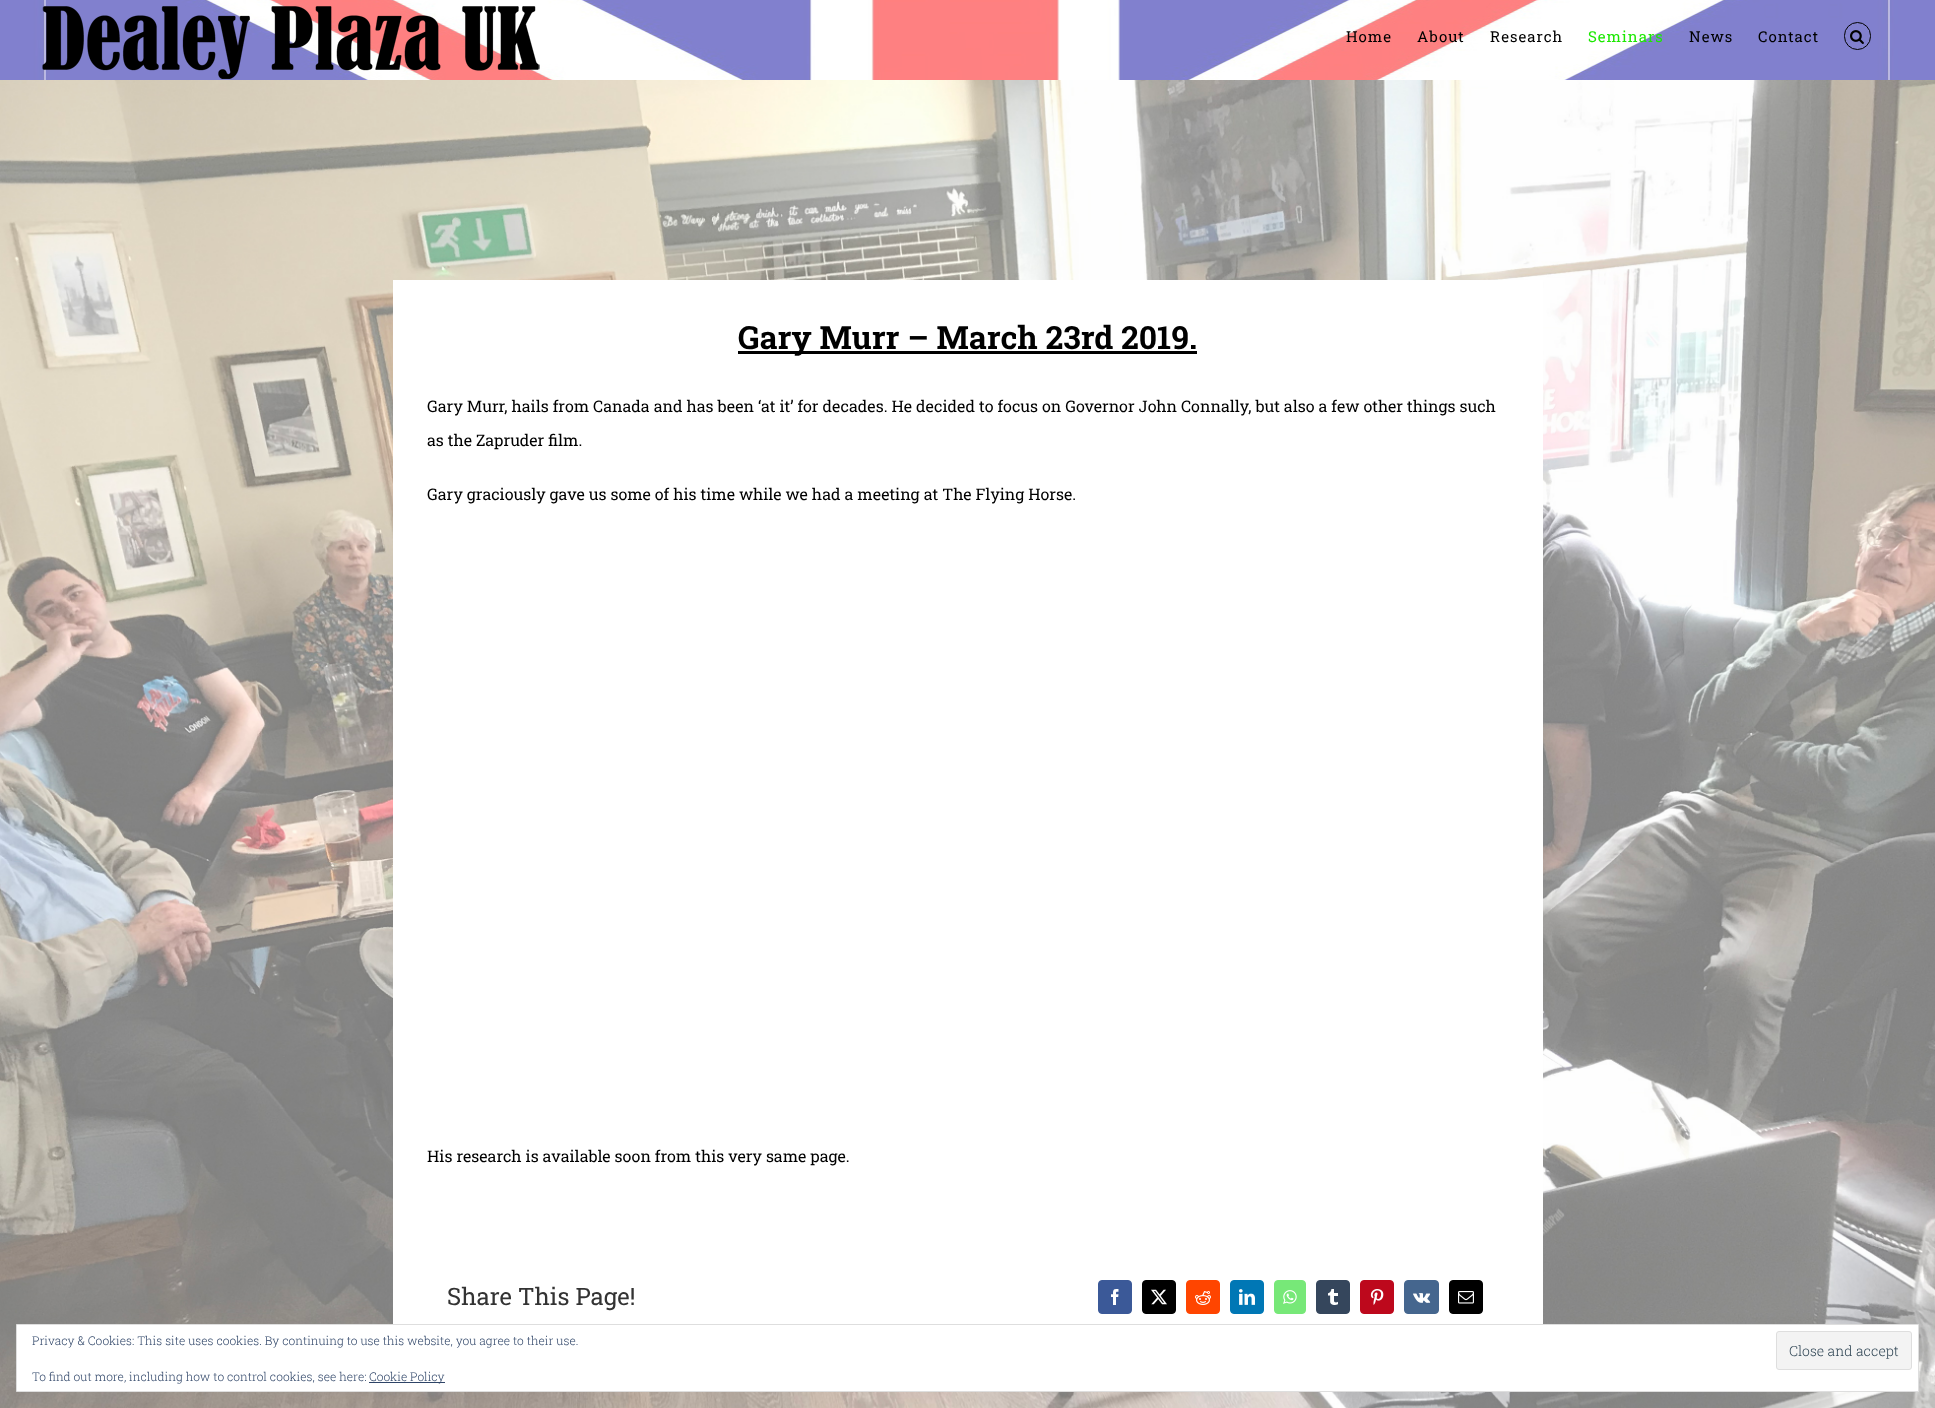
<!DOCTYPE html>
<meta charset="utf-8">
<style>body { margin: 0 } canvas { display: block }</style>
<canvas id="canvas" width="1935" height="1408"></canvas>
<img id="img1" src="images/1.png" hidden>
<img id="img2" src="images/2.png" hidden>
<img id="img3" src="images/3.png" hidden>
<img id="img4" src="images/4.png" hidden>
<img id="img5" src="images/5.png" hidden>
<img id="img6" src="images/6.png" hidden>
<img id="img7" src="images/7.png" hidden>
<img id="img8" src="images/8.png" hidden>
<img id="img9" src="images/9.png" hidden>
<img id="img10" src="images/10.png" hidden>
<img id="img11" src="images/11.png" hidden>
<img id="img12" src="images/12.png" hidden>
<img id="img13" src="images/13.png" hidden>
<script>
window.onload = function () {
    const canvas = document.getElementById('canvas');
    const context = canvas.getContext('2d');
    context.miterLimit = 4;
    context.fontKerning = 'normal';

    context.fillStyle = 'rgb(255, 255, 255)';
    context.fillRect(0, 0, 1935, 1408);
    context.drawImage(document.getElementById('img1'), 0, 0, 1935, 80);
    context.drawImage(document.getElementById('img2'), 42, 6, 498, 73);
    context.beginPath();
    context.roundRect(1844.5, 22.5, 26, 27, 13);
    context.strokeStyle = 'rgb(0, 0, 0)';
    context.stroke();
    context.drawImage(document.getElementById('img3'), 1850, 30, 14, 14);
    context.drawImage(document.getElementById('img4'), 0, 80, 1935, 1328);
    context.fillRect(393, 280, 1150, 1044);
    context.fillStyle = 'rgb(0, 0, 0)';
    context.fillRect(738, 351, 459, 3);
    context.fillStyle = 'rgb(59, 89, 152)';
    context.beginPath();
    context.roundRect(1098.5, 1280.5, 33, 33, 3.5);
    context.fill();
    context.strokeStyle = 'rgb(59, 89, 152)';
    context.stroke();
    context.drawImage(document.getElementById('img5'), 1111, 1289, 8, 16);
    context.fillStyle = 'rgb(0, 0, 0)';
    context.beginPath();
    context.roundRect(1142.5, 1280.5, 33, 33, 3.5);
    context.fill();
    context.strokeStyle = 'rgb(0, 0, 0)';
    context.stroke();
    context.drawImage(document.getElementById('img6'), 1151, 1289, 16, 16);
    context.fillStyle = 'rgb(255, 69, 0)';
    context.beginPath();
    context.roundRect(1186.5, 1280.5, 33, 33, 3.5);
    context.fill();
    context.strokeStyle = 'rgb(255, 69, 0)';
    context.stroke();
    context.drawImage(document.getElementById('img7'), 1195, 1291, 16, 14);
    context.fillStyle = 'rgb(0, 119, 181)';
    context.beginPath();
    context.roundRect(1230.5, 1280.5, 33, 33, 3.5);
    context.fill();
    context.strokeStyle = 'rgb(0, 119, 181)';
    context.stroke();
    context.drawImage(document.getElementById('img8'), 1239, 1289, 16, 16);
    context.fillStyle = 'rgb(119, 232, 120)';
    context.beginPath();
    context.roundRect(1274.5, 1280.5, 31, 33, 3.5);
    context.fill();
    context.strokeStyle = 'rgb(119, 232, 120)';
    context.stroke();
    context.drawImage(document.getElementById('img9'), 1283, 1290, 14, 14);
    context.fillStyle = 'rgb(53, 70, 92)';
    context.beginPath();
    context.roundRect(1316.5, 1280.5, 33, 33, 3.5);
    context.fill();
    context.strokeStyle = 'rgb(53, 70, 92)';
    context.stroke();
    context.drawImage(document.getElementById('img10'), 1328, 1289, 10, 16);
    context.fillStyle = 'rgb(189, 8, 28)';
    context.beginPath();
    context.roundRect(1360.5, 1280.5, 33, 33, 3.5);
    context.fill();
    context.strokeStyle = 'rgb(189, 8, 28)';
    context.stroke();
    context.drawImage(document.getElementById('img11'), 1370, 1289, 14, 16);
    context.fillStyle = 'rgb(69, 102, 142)';
    context.beginPath();
    context.roundRect(1404.5, 1280.5, 34, 33, 3.5);
    context.fill();
    context.strokeStyle = 'rgb(69, 102, 142)';
    context.stroke();
    context.drawImage(document.getElementById('img12'), 1413, 1293, 18, 10);
    context.fillStyle = 'rgb(0, 0, 0)';
    context.beginPath();
    context.roundRect(1449.5, 1280.5, 33, 33, 3.5);
    context.fill();
    context.strokeStyle = 'rgb(0, 0, 0)';
    context.stroke();
    context.drawImage(document.getElementById('img13'), 1458, 1291, 16, 13);
    context.fillStyle = 'rgb(255, 255, 255)';
    context.beginPath();
    context.rect(16.5, 1324.5, 1902, 67);
    context.fill();
    context.strokeStyle = 'rgb(222, 222, 222)';
    context.stroke();
    context.fillStyle = 'rgb(243, 243, 243)';
    context.beginPath();
    context.roundRect(1776.5, 1331.5, 135, 38, 2.5);
    context.fill();
    context.stroke();
    context.fillStyle = 'rgb(46, 68, 103)';
    context.fillRect(369, 1382, 76, 1);
    context.letterSpacing = '1px';
    context.font = '15px Roboto Slab';
    context.fillStyle = 'rgb(0, 0, 0)';
    context.fillText('Home', 1346, 42);
    context.fillText('About', 1417, 42);
    context.fillText('Research', 1490, 42);
    context.fillStyle = 'rgb(27, 232, 0)';
    context.fillText('Seminars', 1588, 42);
    context.fillStyle = 'rgb(0, 0, 0)';
    context.fillText('News', 1689, 42);
    context.fillText('Contact', 1758, 42);
    context.letterSpacing = '0px';
    context.font = 'bold 32px Roboto Slab';
    context.fillText('Gary Murr – March 23rd 2019.', 738, 349);
    context.font = '16px Roboto Slab';
    context.fillText('Gary Murr, hails from Canada and has been ‘at it’ for decades. He decided to focus on Governor John Connally, but also a few other things such', 427, 412);
    context.fillText('as the Zapruder film.', 427, 446);
    context.fillText('Gary graciously gave us some of his time while we had a meeting at The Flying Horse.', 427, 500);
    context.fillText('His research is available soon from this very same page.', 427, 1162);
    context.font = '24px Roboto Slab';
    context.fillStyle = 'rgb(51, 51, 51)';
    context.fillText('Share This Page!', 447, 1305);
    context.font = '300 12px Roboto Slab';
    context.fillStyle = 'rgb(46, 68, 103)';
    context.fillText('Privacy & Cookies: This site uses cookies. By continuing to use this website, you agree to their use.', 32, 1345);
    context.font = '300 14px Roboto Slab';
    context.fillStyle = 'rgb(46, 68, 83)';
    context.fillText('Close and accept', 1789, 1356);
    context.font = '300 12px Roboto Slab';
    context.fillStyle = 'rgb(46, 68, 103)';
    context.fillText('To find out more, including how to control cookies, see here:', 32, 1381);
    context.fillText('Cookie Policy', 369, 1381);
};
</script>
